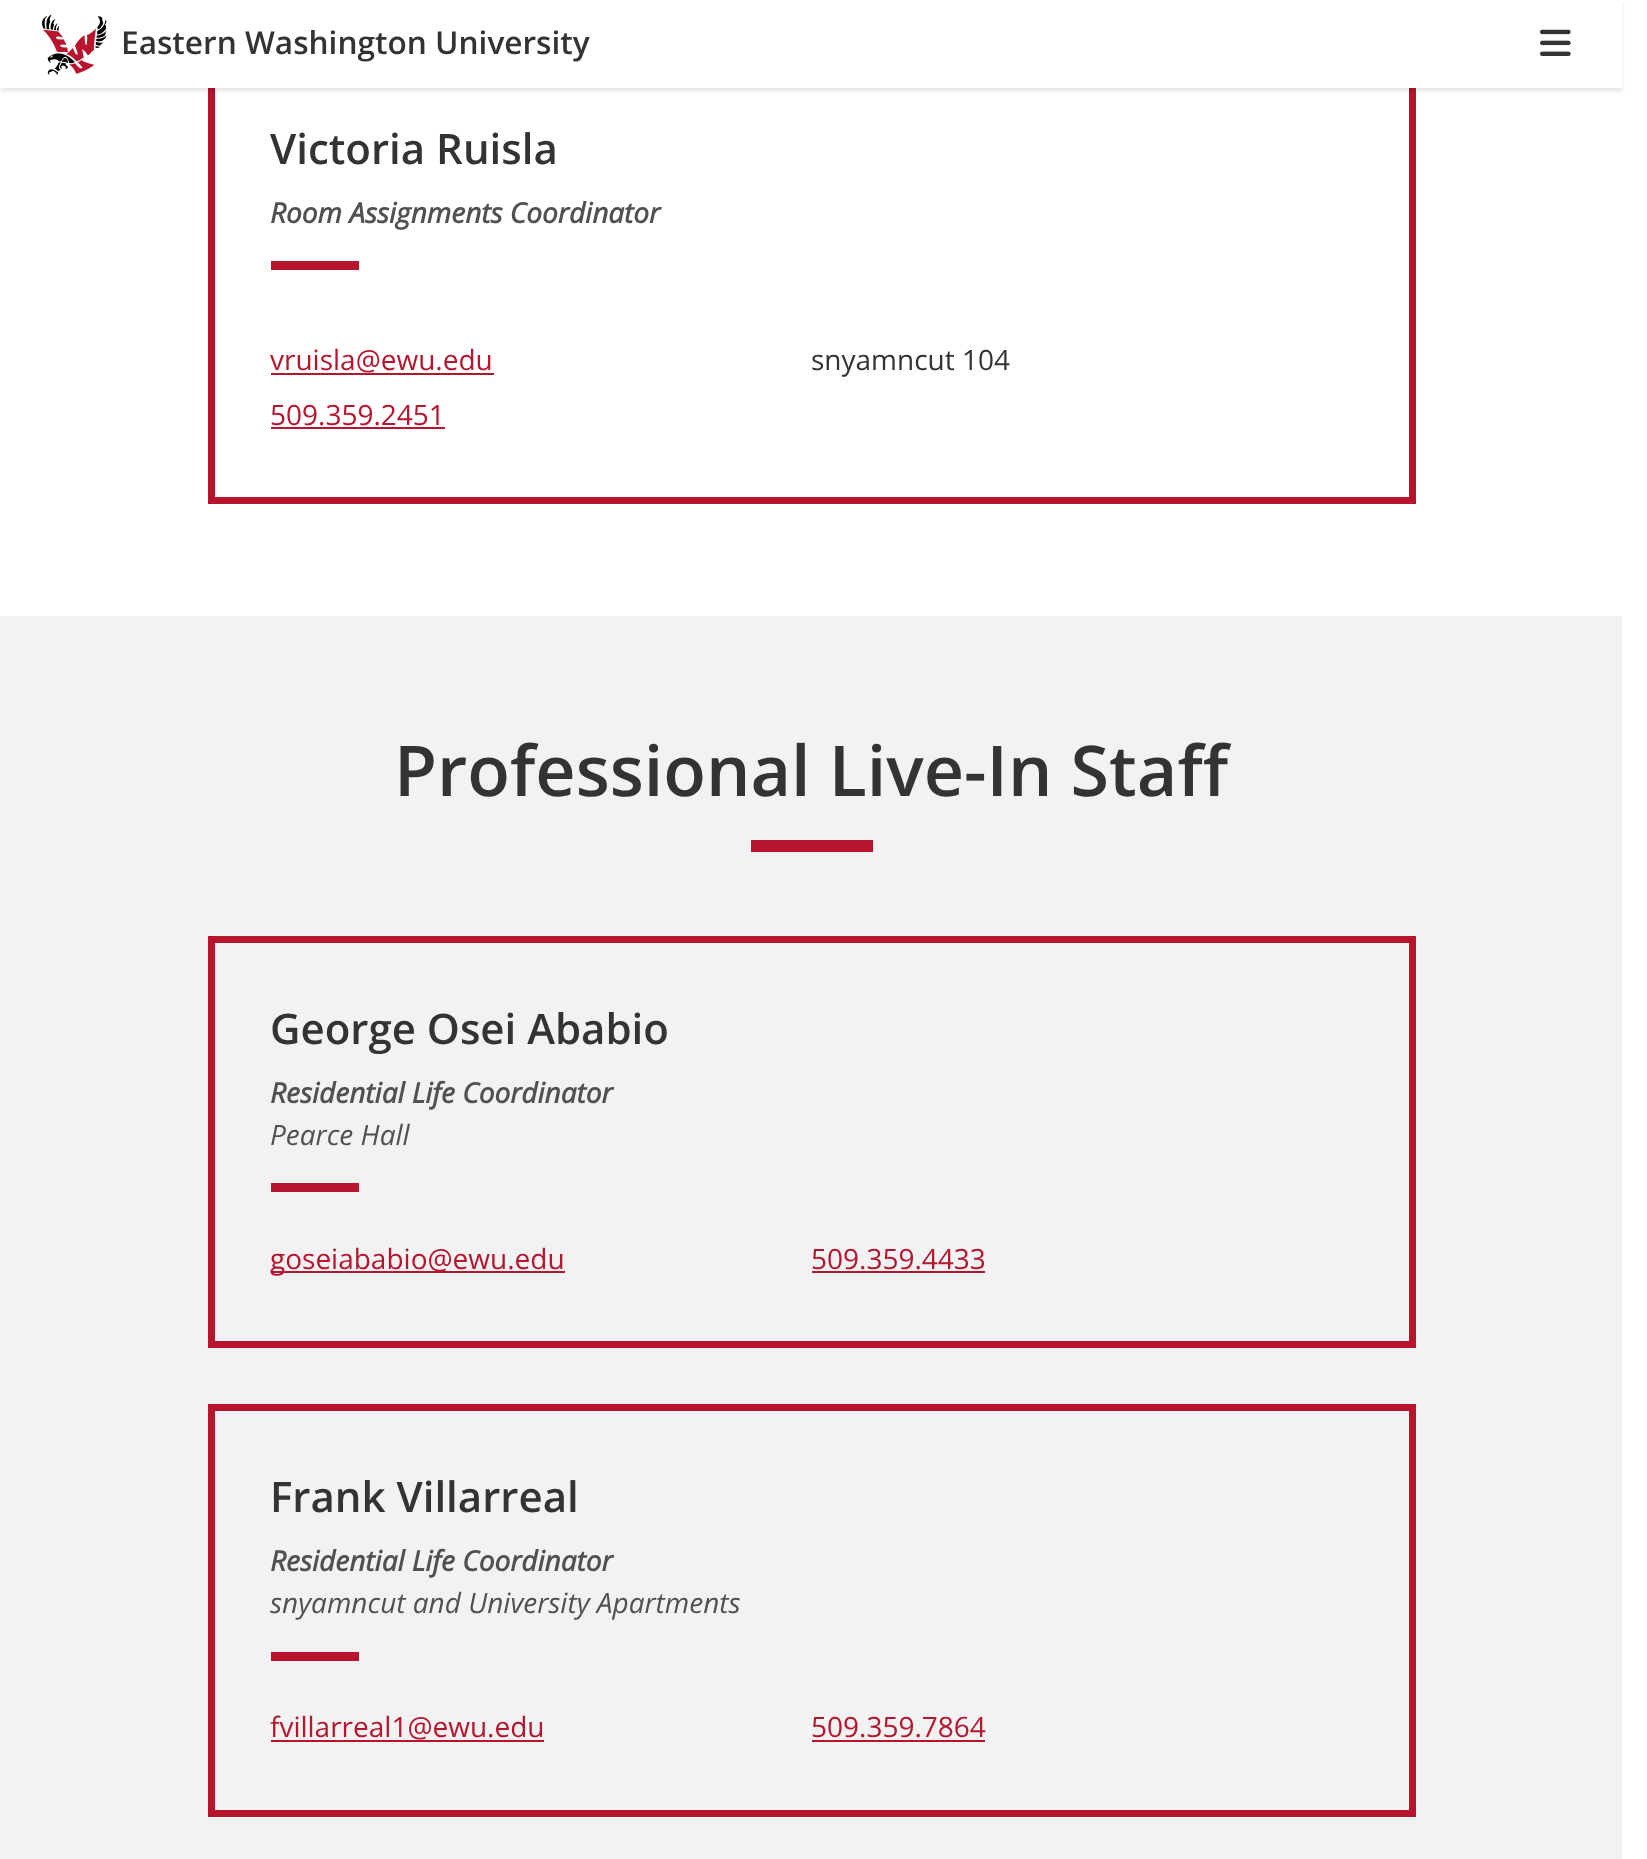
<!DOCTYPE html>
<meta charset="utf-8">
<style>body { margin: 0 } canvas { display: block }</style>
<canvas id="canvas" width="1647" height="1859"></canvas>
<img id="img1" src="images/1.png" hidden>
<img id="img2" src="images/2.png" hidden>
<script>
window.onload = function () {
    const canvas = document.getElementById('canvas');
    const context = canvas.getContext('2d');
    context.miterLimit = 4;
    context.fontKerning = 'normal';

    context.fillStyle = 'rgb(255, 255, 255)';
    context.fillRect(0, 0, 1647, 1859);
    context.strokeStyle = 'rgb(183, 20, 46)';
    context.lineWidth = 7;
    context.strokeRect(211.5, 59.5, 1201, 441);
    context.fillStyle = 'rgba(0, 0, 0, 0.1)';
    context.filter = 'blur(2px)';
    context.beginPath();
    context.rect(0, 4, 1622, 87);
    context.fill();
    context.filter = 'none';
    context.fillStyle = 'rgb(255, 255, 255)';
    context.fillRect(0, 1, 1622, 87);
    context.drawImage(document.getElementById('img1'), 42, 14, 65, 61);
    context.drawImage(document.getElementById('img2'), 1540, 29, 31, 27);
    context.fillStyle = 'rgb(183, 20, 46)';
    context.fillRect(271, 261, 88, 9);
    context.fillRect(271, 373, 223, 2);
    context.fillRect(271, 427, 174, 2);
    context.fillStyle = 'rgb(242, 242, 242)';
    context.fillRect(0, 616, 1622, 1243);
    context.fillStyle = 'rgb(183, 20, 46)';
    context.fillRect(751, 840, 122, 12);
    context.strokeRect(211.5, 939.5, 1201, 405);
    context.fillRect(271, 1183, 88, 9);
    context.fillRect(271, 1271, 294, 2);
    context.fillRect(812, 1271, 173, 2);
    context.strokeRect(211.5, 1407.5, 1201, 406);
    context.fillRect(271, 1652, 88, 9);
    context.fillRect(271, 1740, 273, 2);
    context.fillRect(812, 1740, 173, 2);
    context.font = '600 31.6px Open Sans';
    context.fillStyle = 'rgb(51, 51, 51)';
    context.fillText('Eastern Washington University', 121, 54);
    context.font = '600 42px Open Sans';
    context.fillText('Victoria Ruisla', 270, 164);
    context.font = 'italic bold 28px Open Sans';
    context.fillStyle = 'rgb(81, 81, 81)';
    context.fillText('Room Assignments Coordinator', 270, 223);
    context.font = '28px Open Sans';
    context.fillStyle = 'rgb(183, 20, 46)';
    context.fillText('vruisla@ewu.edu', 270, 370);
    context.fillStyle = 'rgb(51, 51, 51)';
    context.fillText('snyamncut 104', 811, 370);
    context.fillStyle = 'rgb(183, 20, 46)';
    context.fillText('509.359.2451', 270, 425);
    context.font = '600 70px Open Sans';
    context.fillStyle = 'rgb(51, 51, 51)';
    context.fillText('Professional Live-In Staff', 394, 796);
    context.font = '600 42px Open Sans';
    context.fillText('George Osei Ababio', 270, 1044);
    context.font = 'italic bold 28px Open Sans';
    context.fillStyle = 'rgb(81, 81, 81)';
    context.fillText('Residential Life Coordinator', 270, 1103);
    context.font = 'italic 28px Open Sans';
    context.fillText('Pearce Hall', 270, 1145);
    context.font = '28px Open Sans';
    context.fillStyle = 'rgb(183, 20, 46)';
    context.fillText('goseiababio@ewu.edu', 270, 1269);
    context.fillText('509.359.4433', 811, 1269);
    context.font = '600 42px Open Sans';
    context.fillStyle = 'rgb(51, 51, 51)';
    context.fillText('Frank Villarreal', 270, 1512);
    context.font = 'italic bold 28px Open Sans';
    context.fillStyle = 'rgb(81, 81, 81)';
    context.fillText('Residential Life Coordinator', 270, 1571);
    context.font = 'italic 28px Open Sans';
    context.fillText('snyamncut and University Apartments', 270, 1613);
    context.font = '28px Open Sans';
    context.fillStyle = 'rgb(183, 20, 46)';
    context.fillText('fvillarreal1@ewu.edu', 270, 1737);
    context.fillText('509.359.7864', 811, 1737);
};
</script>
